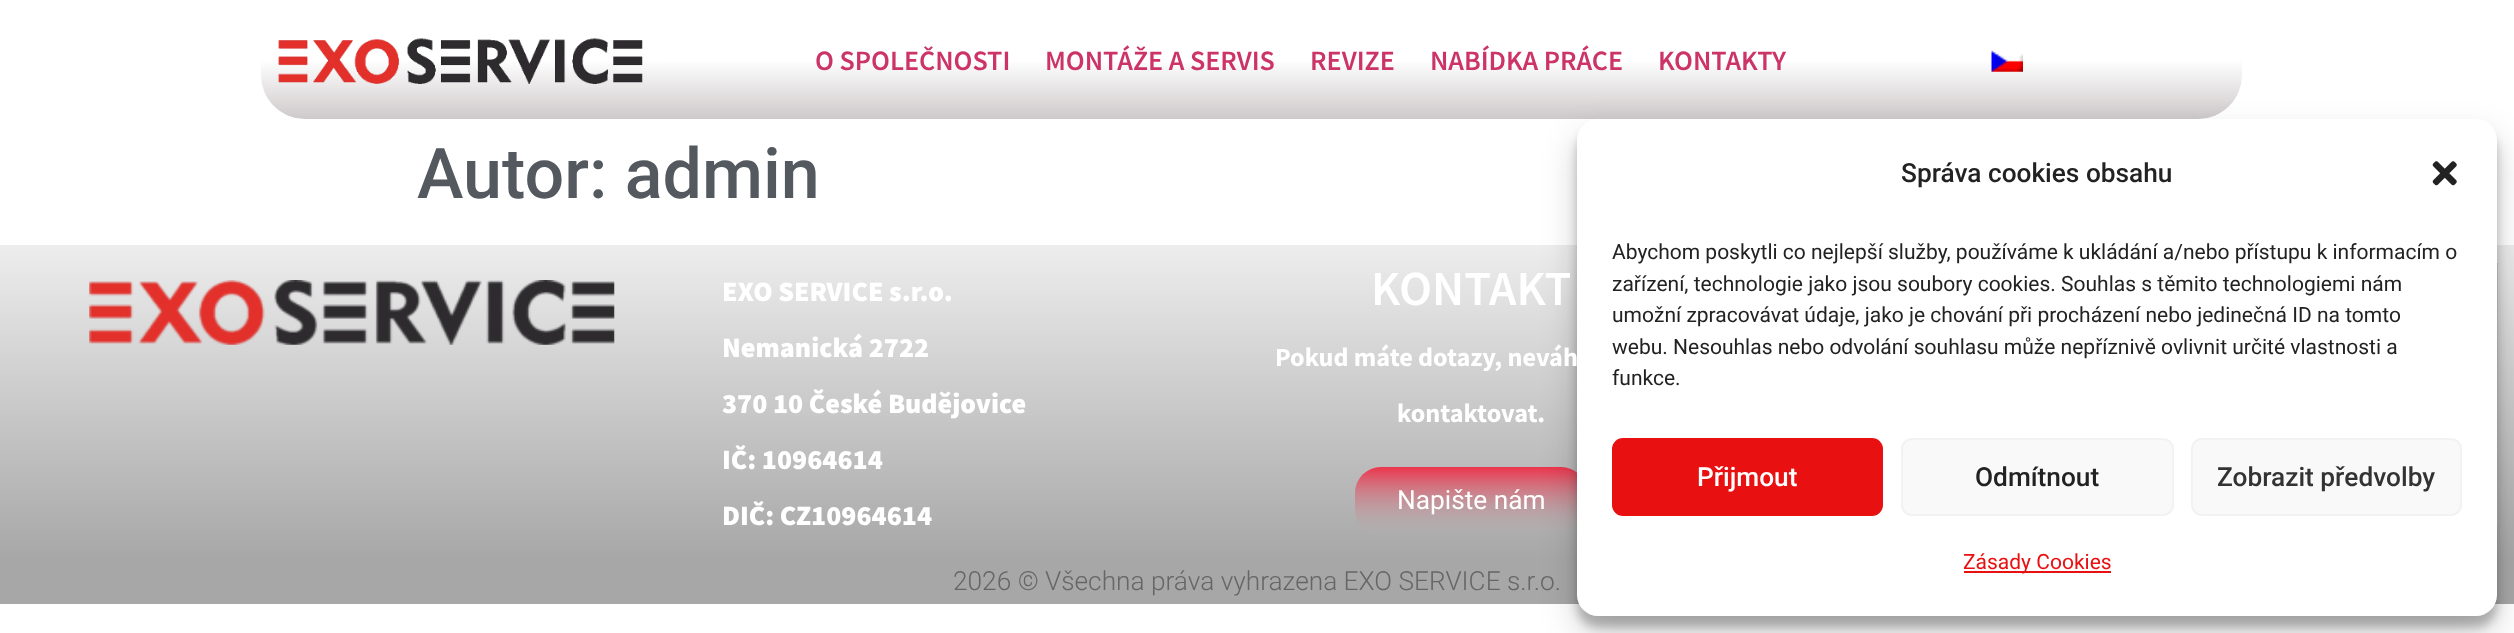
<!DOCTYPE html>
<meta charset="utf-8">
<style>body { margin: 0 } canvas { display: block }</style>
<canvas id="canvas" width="2514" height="633"></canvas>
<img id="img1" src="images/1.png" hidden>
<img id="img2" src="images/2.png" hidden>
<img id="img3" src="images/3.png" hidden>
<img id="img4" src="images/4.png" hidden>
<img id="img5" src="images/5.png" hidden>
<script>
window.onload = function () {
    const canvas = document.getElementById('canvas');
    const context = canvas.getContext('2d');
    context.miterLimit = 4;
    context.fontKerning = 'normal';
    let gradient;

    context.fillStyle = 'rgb(255, 255, 255)';
    context.fillRect(0, 0, 2514, 633);
    gradient = context.createLinearGradient(460, 0, 460, 119);
    gradient.addColorStop(0.5, 'rgb(255, 255, 255)');
    gradient.addColorStop(1, 'rgb(206, 201, 202)');
    context.fillStyle = gradient;
    context.beginPath();
    context.roundRect(261, 0, 399, 119, [0, 0, 0, 44]);
    context.fill();
    context.drawImage(document.getElementById('img1'), 278, 38, 365, 46);
    gradient = context.createLinearGradient(1301, 0, 1301, 119);
    gradient.addColorStop(0.5, 'rgb(255, 255, 255)');
    gradient.addColorStop(1, 'rgb(206, 201, 202)');
    context.fillStyle = gradient;
    context.fillRect(660, 62, 1283, 57);
    gradient = context.createLinearGradient(2092, 0, 2092, 119);
    gradient.addColorStop(0.5, 'rgb(255, 255, 255)');
    gradient.addColorStop(1, 'rgb(206, 201, 202)');
    context.fillStyle = gradient;
    context.beginPath();
    context.roundRect(1943, 0, 299, 119, [0, 0, 44, 0]);
    context.fill();
    context.drawImage(document.getElementById('img2'), 1991, 50, 32, 22);
    gradient = context.createLinearGradient(1257, 245, 1257, 560);
    gradient.addColorStop(0, 'rgb(237, 237, 237)');
    gradient.addColorStop(1, 'rgb(168, 167, 167)');
    context.fillStyle = gradient;
    context.fillRect(0, 245, 2514, 315);
    context.drawImage(document.getElementById('img3'), 89, 280, 526, 65);
    gradient = context.createLinearGradient(1471, 467, 1471, 536);
    gradient.addColorStop(0, 'rgba(255, 0, 33, 0.72)');
    gradient.addColorStop(1, 'rgba(182, 180, 180, 0.02)');
    context.fillStyle = gradient;
    context.beginPath();
    context.roundRect(1355, 467, 232, 69, 26);
    context.fill();
    context.drawImage(document.getElementById('img4'), 2497, 263, 1, 262);
    context.fillStyle = 'rgb(168, 167, 167)';
    context.fillRect(0, 560, 2514, 44);
    context.fillStyle = 'rgba(0, 0, 0, 0.23)';
    context.filter = 'blur(5px)';
    context.beginPath();
    context.roundRect(1577, 130, 920, 497, 21);
    context.fill();
    context.filter = 'none';
    context.fillStyle = 'rgba(0, 0, 0, 0.19)';
    context.filter = 'blur(17.5px)';
    context.beginPath();
    context.roundRect(1577, 137, 920, 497, 21);
    context.fill();
    context.filter = 'none';
    context.fillStyle = 'rgb(255, 255, 255)';
    context.beginPath();
    context.roundRect(1577, 119, 920, 497, 21);
    context.fill();
    context.drawImage(document.getElementById('img5'), 2432, 161, 25, 25);
    context.fillStyle = 'rgb(232, 16, 16)';
    context.beginPath();
    context.roundRect(1613, 439, 269, 76, 10);
    context.fill();
    context.strokeStyle = 'rgb(232, 16, 16)';
    context.lineWidth = 2;
    context.stroke();
    context.fillStyle = 'rgb(249, 249, 249)';
    context.beginPath();
    context.roundRect(1902, 439, 271, 76, 10);
    context.fill();
    context.strokeStyle = 'rgb(242, 242, 242)';
    context.stroke();
    context.beginPath();
    context.roundRect(2192, 439, 269, 76, 10);
    context.fill();
    context.stroke();
    context.fillStyle = 'rgb(232, 16, 16)';
    context.fillRect(1964, 571, 147, 2);
    context.font = '600 28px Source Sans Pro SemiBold';
    context.fillStyle = 'rgb(204, 51, 102)';
    context.fillText('O SPOLEČNOSTI', 815, 70);
    context.fillText('MONTÁŽE A SERVIS', 1045, 70);
    context.fillText('REVIZE', 1310, 70);
    context.fillText('NABÍDKA PRÁCE', 1430, 70);
    context.fillText('KONTAKTY', 1658, 70);
    context.font = '500 70px Roboto';
    context.fillStyle = 'rgb(84, 89, 95)';
    context.fillText('Autor: admin', 417, 198);
    context.font = '900 28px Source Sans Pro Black';
    context.fillStyle = 'rgb(255, 255, 255)';
    context.fillText('EXO SERVICE s.r.o.', 722, 301);
    context.fillText('Nemanická 2722', 722, 357);
    context.fillText('370 10 České Budějovice', 722, 413);
    context.fillText('IČ: 10964614', 722, 469);
    context.fillText('DIČ: CZ10964614', 722, 525);
    context.font = '600 49px Source Sans Pro SemiBold';
    context.fillText('KONTAKT', 1371, 305);
    context.font = 'bold 26.25px Source Sans Pro';
    context.fillText('Pokud máte dotazy, neváh', 1275, 366);
    context.fillText('kontaktovat.', 1397, 422);
    context.font = '26.25px Roboto';
    context.fillText('Napište nám', 1397, 509);
    context.font = '300 26.25px Roboto';
    context.fillStyle = 'rgb(102, 102, 102)';
    context.fillText('2026 © Všechna práva vyhrazena EXO SERVICE s.r.o.', 953, 590);
    context.font = '500 26.25px Roboto';
    context.fillStyle = 'rgb(34, 34, 34)';
    context.fillText('Správa cookies obsahu', 1901, 182);
    context.font = '21px Roboto';
    context.fillText('Abychom poskytli co nejlepší služby, používáme k ukládání a/nebo přístupu k informacím o', 1612, 259);
    context.fillText('zařízení, technologie jako jsou soubory cookies. Souhlas s těmito technologiemi nám', 1612, 291);
    context.fillText('umožní zpracovávat údaje, jako je chování při procházení nebo jedinečná ID na tomto', 1612, 322);
    context.fillText('webu. Nesouhlas nebo odvolání souhlasu může nepříznivě ovlivnit určité vlastnosti a', 1612, 354);
    context.fillText('funkce.', 1612, 385);
    context.font = '500 26.25px Roboto';
    context.fillStyle = 'rgb(255, 255, 255)';
    context.fillText('Přijmout', 1697, 486);
    context.fillStyle = 'rgb(34, 34, 34)';
    context.fillText('Odmítnout', 1975, 486);
    context.fillStyle = 'rgb(51, 51, 51)';
    context.fillText('Zobrazit předvolby', 2217, 486);
    context.font = '21px Roboto';
    context.fillStyle = 'rgb(232, 16, 16)';
    context.fillText('Zásady Cookies', 1963, 569);
};
</script>
